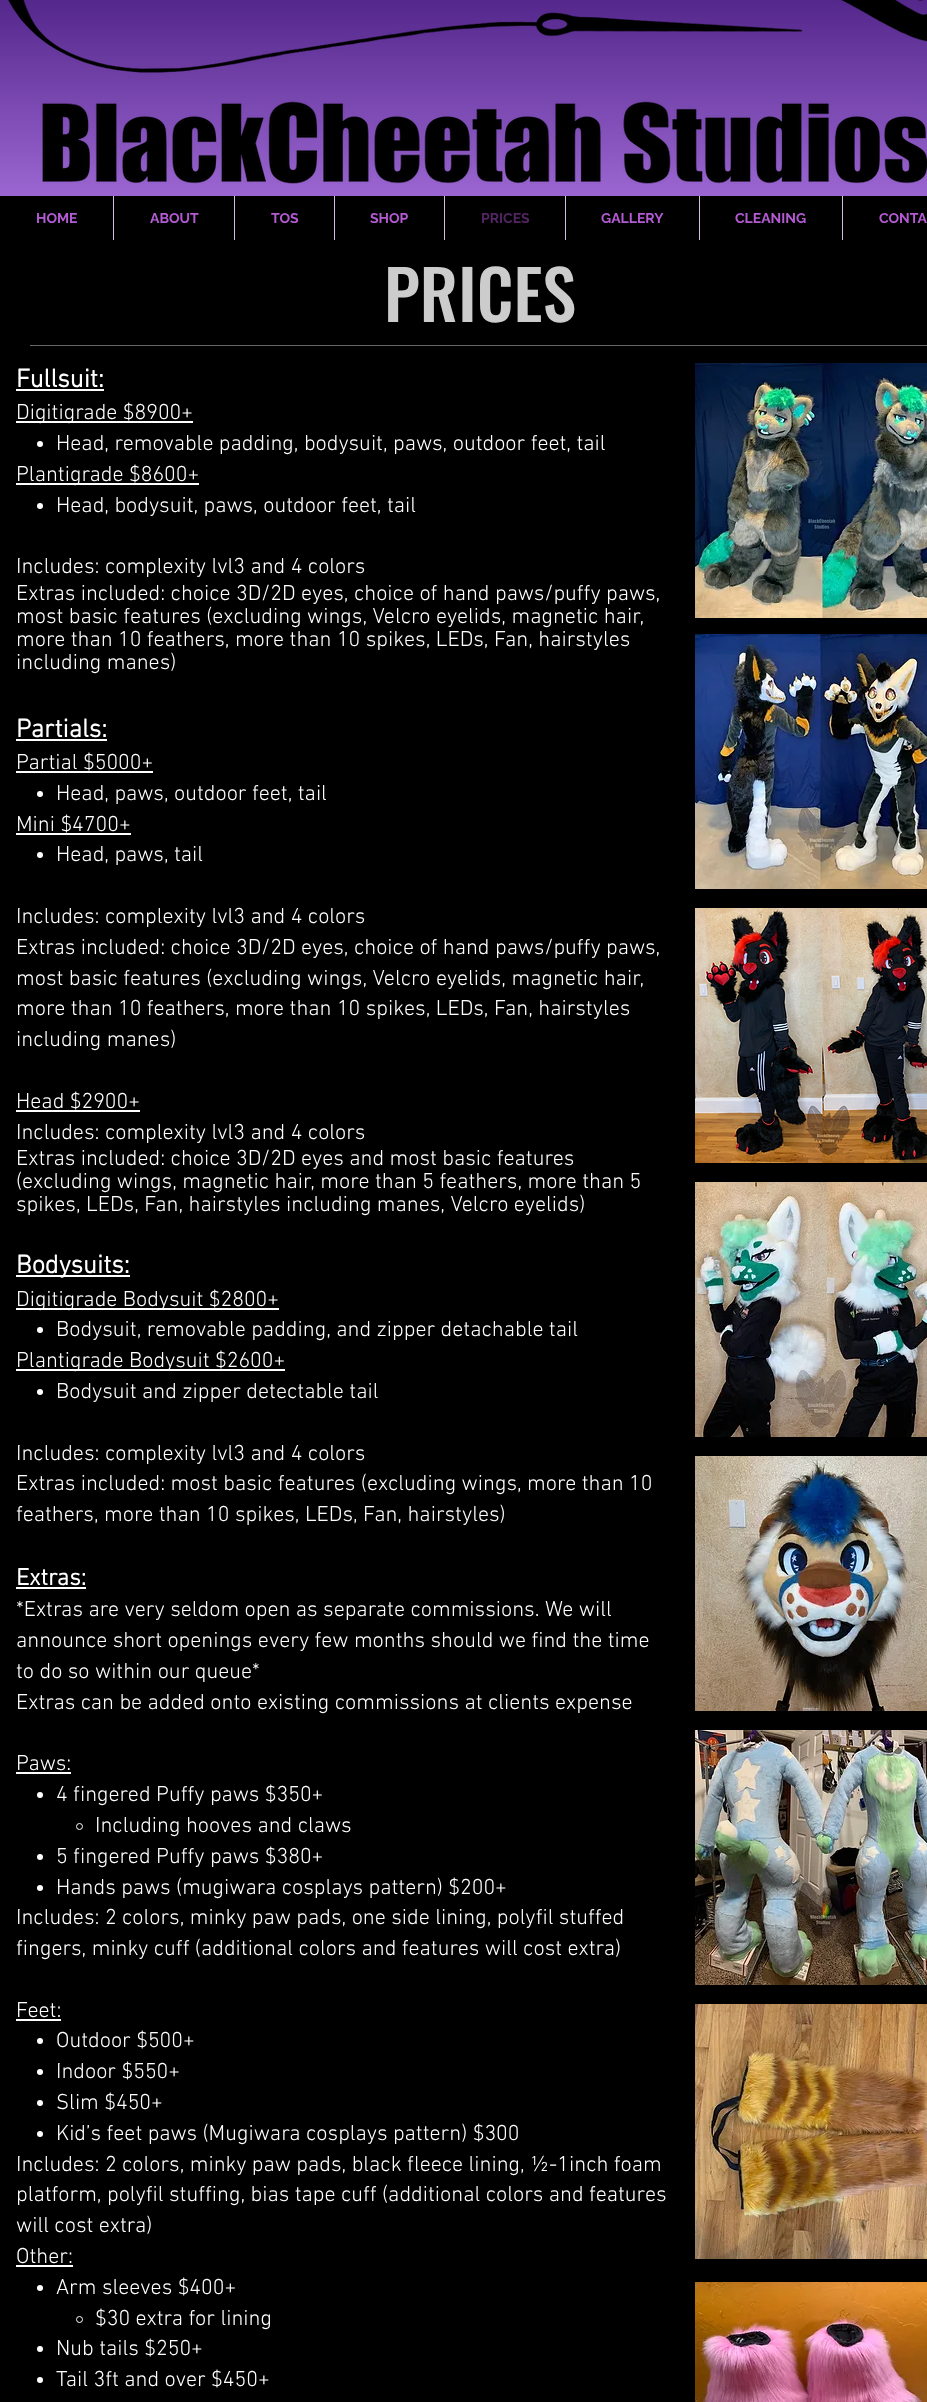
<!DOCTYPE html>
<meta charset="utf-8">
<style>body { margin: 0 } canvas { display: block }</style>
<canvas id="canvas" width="927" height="2402"></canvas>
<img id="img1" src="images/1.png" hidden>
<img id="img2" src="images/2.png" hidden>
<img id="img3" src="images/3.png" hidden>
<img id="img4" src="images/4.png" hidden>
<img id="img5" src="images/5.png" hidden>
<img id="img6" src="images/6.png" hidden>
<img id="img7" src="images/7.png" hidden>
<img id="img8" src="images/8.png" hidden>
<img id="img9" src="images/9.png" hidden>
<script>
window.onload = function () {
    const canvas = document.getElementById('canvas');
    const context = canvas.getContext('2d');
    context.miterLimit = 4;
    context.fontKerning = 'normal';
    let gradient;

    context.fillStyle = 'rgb(255, 255, 255)';
    context.fillRect(0, 0, 927, 2402);
    gradient = context.createLinearGradient(490, -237, 490, 196);
    gradient.addColorStop(0, 'rgb(49, 8, 105)');
    gradient.addColorStop(0.32, 'rgb(49, 8, 105)');
    gradient.addColorStop(1, 'rgb(155, 102, 209)');
    context.fillStyle = gradient;
    context.fillRect(0, 0, 927, 196);
    context.drawImage(document.getElementById('img1'), 8, 0, 919, 184);
    context.fillStyle = 'rgb(0, 0, 0)';
    context.fillRect(0, 196, 927, 2206);
    context.fillStyle = 'rgb(216, 189, 226)';
    context.fillRect(113, 196, 1, 44);
    context.fillRect(234, 196, 1, 44);
    context.fillRect(334, 196, 1, 44);
    context.fillRect(444, 196, 1, 44);
    context.fillRect(565, 196, 1, 44);
    context.fillRect(699, 196, 1, 44);
    context.fillRect(842, 196, 1, 44);
    context.fillStyle = 'rgb(102, 102, 102)';
    context.fillRect(30, 345, 897, 1);
    context.fillStyle = 'rgb(255, 255, 255)';
    context.fillRect(16, 389, 88, 2);
    context.fillRect(16, 421, 177, 2);
    context.beginPath();
    context.arc(40, 444, 3, 0, 2 * Math.PI);
    context.fill();
    context.fillRect(16, 483, 183, 2);
    context.beginPath();
    context.arc(40, 506, 3, 0, 2 * Math.PI);
    context.fill();
    context.fillRect(16, 739, 91, 2);
    context.fillRect(16, 771, 137, 2);
    context.beginPath();
    context.arc(40, 794, 3, 0, 2 * Math.PI);
    context.fill();
    context.fillRect(16, 833, 115, 2);
    context.beginPath();
    context.arc(40, 855, 3, 0, 2 * Math.PI);
    context.fill();
    context.fillRect(16, 1110, 124, 2);
    context.fillRect(16, 1275, 114, 2);
    context.fillRect(16, 1308, 263, 2);
    context.beginPath();
    context.arc(40, 1330, 3, 0, 2 * Math.PI);
    context.fill();
    context.fillRect(16, 1369, 269, 2);
    context.beginPath();
    context.arc(40, 1392, 3, 0, 2 * Math.PI);
    context.fill();
    context.fillRect(16, 1587, 70, 2);
    context.fillRect(16, 1772, 55, 2);
    context.beginPath();
    context.arc(40, 1795, 3, 0, 2 * Math.PI);
    context.fill();
    context.beginPath();
    context.arc(79.5, 1826.5, 3, 0, 2 * Math.PI);
    context.strokeStyle = 'rgb(255, 255, 255)';
    context.stroke();
    context.beginPath();
    context.arc(40, 1857, 3, 0, 2 * Math.PI);
    context.fill();
    context.beginPath();
    context.arc(40, 1888, 3, 0, 2 * Math.PI);
    context.fill();
    context.fillRect(16, 2019, 45, 2);
    context.beginPath();
    context.arc(40, 2041, 3, 0, 2 * Math.PI);
    context.fill();
    context.beginPath();
    context.arc(40, 2072, 3, 0, 2 * Math.PI);
    context.fill();
    context.beginPath();
    context.arc(40, 2103, 3, 0, 2 * Math.PI);
    context.fill();
    context.beginPath();
    context.arc(40, 2134, 3, 0, 2 * Math.PI);
    context.fill();
    context.fillRect(16, 2265, 57, 2);
    context.beginPath();
    context.arc(40, 2288, 3, 0, 2 * Math.PI);
    context.fill();
    context.beginPath();
    context.arc(79.5, 2319.5, 3, 0, 2 * Math.PI);
    context.stroke();
    context.beginPath();
    context.arc(40, 2349, 3, 0, 2 * Math.PI);
    context.fill();
    context.beginPath();
    context.arc(40, 2380, 3, 0, 2 * Math.PI);
    context.fill();
    context.drawImage(document.getElementById('img2'), 695, 363, 232, 255);
    context.drawImage(document.getElementById('img3'), 695, 634, 232, 255);
    context.drawImage(document.getElementById('img4'), 695, 908, 232, 255);
    context.drawImage(document.getElementById('img5'), 695, 1182, 232, 255);
    context.drawImage(document.getElementById('img6'), 695, 1456, 232, 255);
    context.drawImage(document.getElementById('img7'), 695, 1730, 232, 255);
    context.drawImage(document.getElementById('img8'), 695, 2004, 232, 255);
    context.drawImage(document.getElementById('img9'), 695, 2282, 232, 120);
    context.font = 'bold 14px Raleway';
    context.fillStyle = 'rgb(180, 90, 211)';
    context.fillText('HOME', 36, 223);
    context.fillText('ABOUT', 150, 223);
    context.fillText('TOS', 271, 223);
    context.fillText('SHOP', 370, 223);
    context.fillStyle = 'rgb(83, 37, 99)';
    context.fillText('PRICES', 481, 223);
    context.fillStyle = 'rgb(180, 90, 211)';
    context.fillText('GALLERY', 601, 223);
    context.fillText('CLEANING', 735, 223);
    context.fillText('CONTA', 879, 223);
    context.font = '500 68px Oswald';
    context.fillStyle = 'rgb(204, 204, 204)';
    context.fillText('PRICES', 384, 322);
    context.font = 'bold 26px "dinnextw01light"';
    context.fillStyle = 'rgb(255, 255, 255)';
    context.fillText('Fullsuit:', 16, 387);
    context.font = '300 22px "dinnextw01light"';
    context.fillText('Digitigrade $8900+', 16, 419);
    context.fillText('Head, removable padding, bodysuit, paws, outdoor feet, tail', 56, 450);
    context.fillText('Plantigrade $8600+', 16, 481);
    context.fillText('Head, bodysuit, paws, outdoor feet, tail', 56, 512);
    context.fillText('Includes: complexity lvl3 and 4 colors', 16, 573);
    context.fillText('Extras included: choice 3D/2D eyes, choice of hand paws/puffy paws,', 16, 600);
    context.fillText('most basic features (excluding wings, Velcro eyelids, magnetic hair,', 16, 623);
    context.fillText('more than 10 feathers, more than 10 spikes, LEDs, Fan, hairstyles', 16, 646);
    context.fillText('including manes)', 16, 669);
    context.font = 'bold 26px "dinnextw01light"';
    context.fillText('Partials:', 16, 737);
    context.font = '300 22px "dinnextw01light"';
    context.fillText('Partial $5000+', 16, 769);
    context.fillText('Head, paws, outdoor feet, tail', 56, 800);
    context.fillText('Mini $4700+', 16, 831);
    context.fillText('Head, paws, tail', 56, 861);
    context.fillText('Includes: complexity lvl3 and 4 colors', 16, 923);
    context.fillText('Extras included: choice 3D/2D eyes, choice of hand paws/puffy paws,', 16, 954);
    context.fillText('most basic features (excluding wings, Velcro eyelids, magnetic hair,', 16, 985);
    context.fillText('more than 10 feathers, more than 10 spikes, LEDs, Fan, hairstyles', 16, 1015);
    context.fillText('including manes)', 16, 1046);
    context.fillText('Head $2900+', 16, 1108);
    context.fillText('Includes: complexity lvl3 and 4 colors', 16, 1139);
    context.fillText('Extras included: choice 3D/2D eyes and most basic features', 16, 1165);
    context.fillText('(excluding wings, magnetic hair, more than 5 feathers, more than 5', 16, 1188);
    context.fillText('spikes, LEDs, Fan, hairstyles including manes, Velcro eyelids)', 16, 1211);
    context.font = 'bold 26px "dinnextw01light"';
    context.fillText('Bodysuits:', 16, 1273);
    context.font = '300 22px "dinnextw01light"';
    context.fillText('Digitigrade Bodysuit $2800+', 16, 1306);
    context.fillText('Bodysuit, removable padding, and zipper detachable tail', 56, 1336);
    context.fillText('Plantigrade Bodysuit $2600+', 16, 1367);
    context.fillText('Bodysuit and zipper detectable tail', 56, 1398);
    context.fillText('Includes: complexity lvl3 and 4 colors', 16, 1460);
    context.fillText('Extras included: most basic features (excluding wings, more than 10', 16, 1490);
    context.fillText('feathers, more than 10 spikes, LEDs, Fan, hairstyles)', 16, 1521);
    context.font = 'bold 24px "dinnextw01light"';
    context.fillText('Extras:', 16, 1585);
    context.font = '300 22px "dinnextw01light"';
    context.fillText('*Extras are very seldom open as separate commissions. We will', 16, 1616);
    context.fillText('announce short openings every few months should we find the time', 16, 1647);
    context.fillText('to do so within our queue*', 16, 1678);
    context.fillText('Extras can be added onto existing commissions at clients expense', 16, 1709);
    context.fillText('Paws:', 16, 1770);
    context.fillText('4 fingered Puffy paws $350+', 56, 1801);
    context.fillText('Including hooves and claws', 95, 1832);
    context.fillText('5 fingered Puffy paws $380+', 56, 1863);
    context.fillText('Hands paws (mugiwara cosplays pattern) $200+', 56, 1894);
    context.fillText('Includes: 2 colors, minky paw pads, one side lining, polyfil stuffed', 16, 1924);
    context.fillText('fingers, minky cuff (additional colors and features will cost extra)', 16, 1955);
    context.fillText('Feet:', 16, 2017);
    context.fillText('Outdoor $500+', 56, 2047);
    context.fillText('Indoor $550+', 56, 2078);
    context.fillText('Slim $450+', 56, 2109);
    context.fillText('Kid’s feet paws (Mugiwara cosplays pattern) $300', 56, 2140);
    context.fillText('Includes: 2 colors, minky paw pads, black fleece lining, ½-1inch foam', 16, 2171);
    context.fillText('platform, polyfil stuffing, bias tape cuff (additional colors and features', 16, 2201);
    context.fillText('will cost extra)', 16, 2232);
    context.fillText('Other:', 16, 2263);
    context.fillText('Arm sleeves $400+', 56, 2294);
    context.fillText('$30 extra for lining', 95, 2325);
    context.fillText('Nub tails $250+', 56, 2355);
    context.fillText('Tail 3ft and over $450+', 56, 2386);
};
</script>
